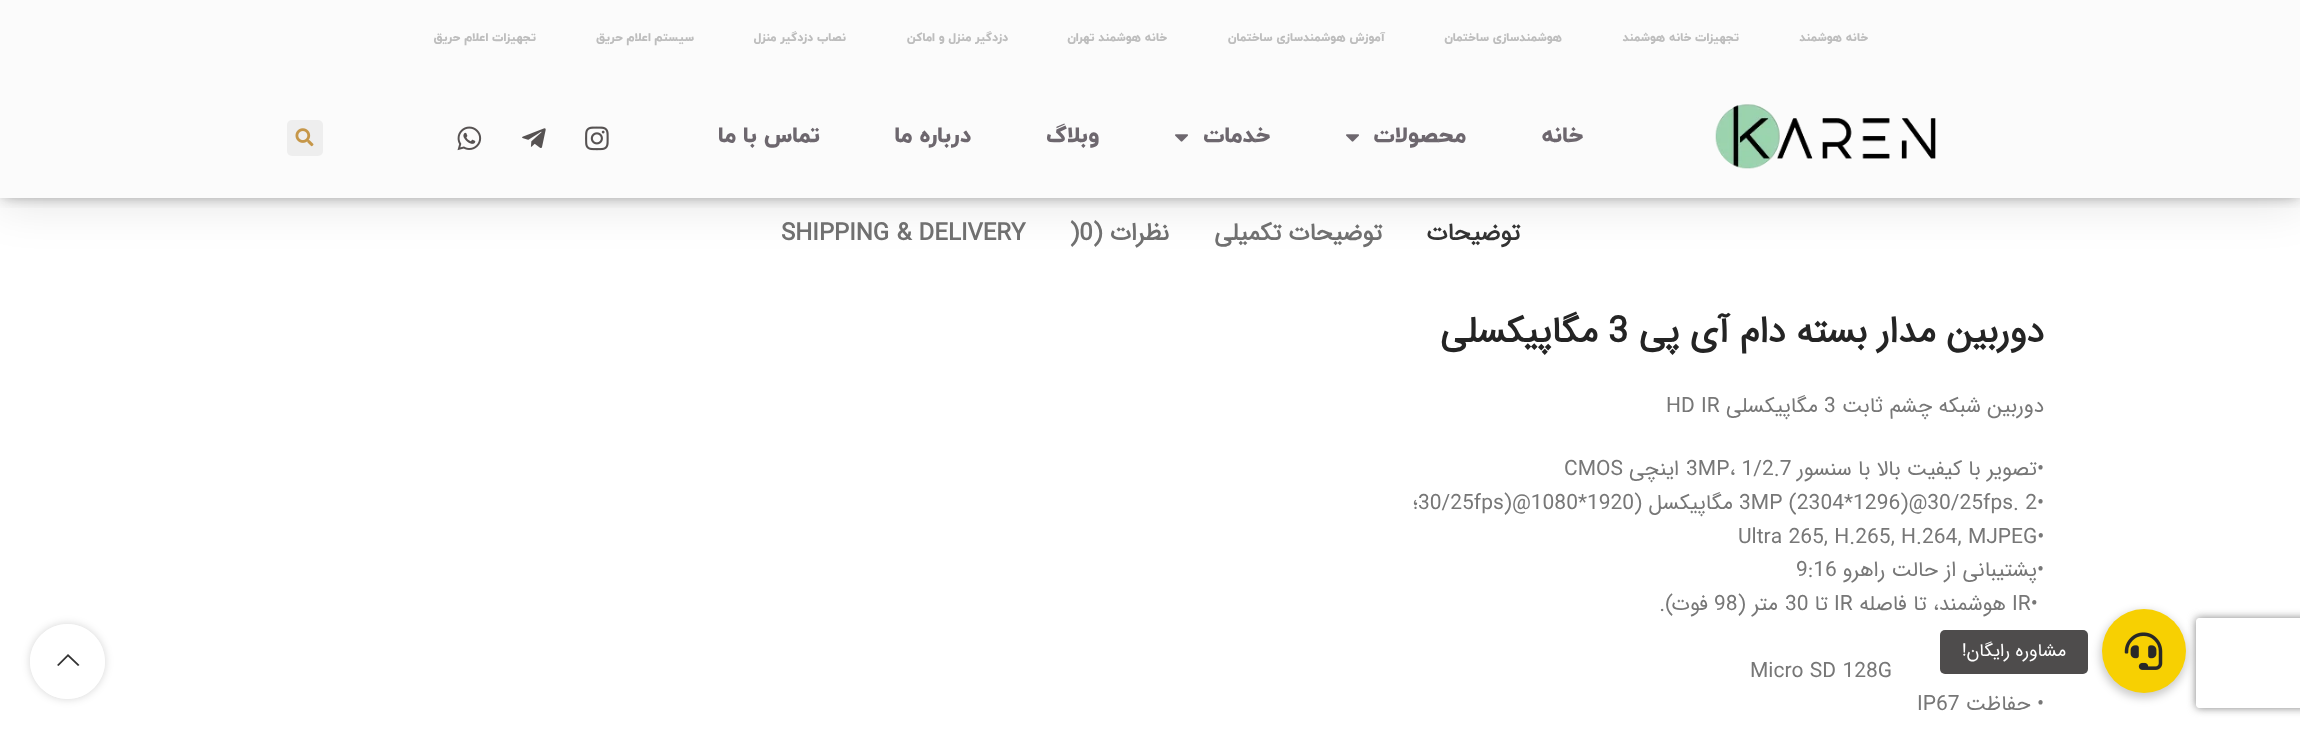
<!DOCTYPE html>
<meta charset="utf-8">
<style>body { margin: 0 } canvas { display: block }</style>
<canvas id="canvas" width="2300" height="729"></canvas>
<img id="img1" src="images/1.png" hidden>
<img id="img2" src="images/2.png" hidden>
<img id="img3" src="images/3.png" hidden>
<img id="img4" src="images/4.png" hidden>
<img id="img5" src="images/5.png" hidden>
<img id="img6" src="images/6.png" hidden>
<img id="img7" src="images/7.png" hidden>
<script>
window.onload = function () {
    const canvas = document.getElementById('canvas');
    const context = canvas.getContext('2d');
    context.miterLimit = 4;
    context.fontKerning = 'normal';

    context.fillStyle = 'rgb(255, 255, 255)';
    context.fillRect(0, 0, 2300, 729);
    context.save();
    context.beginPath();
    context.moveTo(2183, 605);
    context.lineTo(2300, 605);
    context.lineTo(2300, 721);
    context.lineTo(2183, 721);
    context.closePath();
    context.moveTo(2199, 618);
    context.lineTo(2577, 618);
    context.bezierCurveTo(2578.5, 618, 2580, 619.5, 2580, 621);
    context.lineTo(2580, 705);
    context.bezierCurveTo(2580, 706.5, 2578.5, 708, 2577, 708);
    context.lineTo(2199, 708);
    context.bezierCurveTo(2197.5, 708, 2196, 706.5, 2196, 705);
    context.lineTo(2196, 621);
    context.bezierCurveTo(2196, 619.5, 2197.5, 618, 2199, 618);
    context.closePath();
    context.clip('evenodd');
    context.fillStyle = 'rgb(128, 128, 128)';
    context.filter = 'blur(4px)';
    context.beginPath();
    context.roundRect(2196, 618, 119, 90, 3);
    context.fill();
    context.filter = 'none';
    context.restore();
    context.fillStyle = 'rgba(0, 0, 0, 0.1)';
    context.filter = 'blur(22.5px)';
    context.beginPath();
    context.rect(0, 8, 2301, 198);
    context.fill();
    context.filter = 'none';
    context.fillStyle = 'rgb(251, 251, 251)';
    context.fillRect(0, 0, 2300, 198);
    context.save();
    context.beginPath();
    context.rect(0, 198, 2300, 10);
    context.clip();
    context.fillStyle = 'rgba(16, 16, 16, 0.5)';
    context.filter = 'blur(7.5px)';
    context.beginPath();
    context.rect(3, 3, 2295, 192);
    context.fill();
    context.filter = 'none';
    context.restore();
    context.drawImage(document.getElementById('img1'), 1715, 104, 221, 65);
    context.drawImage(document.getElementById('img2'), 1346, 134, 13, 8);
    context.drawImage(document.getElementById('img2'), 1175, 134, 13, 8);
    context.drawImage(document.getElementById('img3'), 585, 126, 24, 25);
    context.drawImage(document.getElementById('img4'), 522, 128, 24, 20);
    context.drawImage(document.getElementById('img5'), 457, 126, 25, 25);
    context.fillStyle = 'rgb(238, 238, 238)';
    context.beginPath();
    context.roundRect(287, 120, 36, 36, 5);
    context.fill();
    context.drawImage(document.getElementById('img6'), 295, 128, 19, 19);
    context.save();
    context.beginPath();
    context.moveTo(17, 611);
    context.lineTo(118, 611);
    context.lineTo(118, 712);
    context.lineTo(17, 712);
    context.closePath();
    context.moveTo(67.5, 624);
    context.bezierCurveTo(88, 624, 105, 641, 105, 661.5);
    context.bezierCurveTo(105, 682, 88, 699, 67.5, 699);
    context.bezierCurveTo(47, 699, 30, 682, 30, 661.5);
    context.bezierCurveTo(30, 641, 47, 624, 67.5, 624);
    context.closePath();
    context.clip('evenodd');
    context.fillStyle = 'rgba(0, 0, 0, 0.17)';
    context.filter = 'blur(4px)';
    context.beginPath();
    context.roundRect(30, 624, 75, 75, 37.5);
    context.fill();
    context.filter = 'none';
    context.restore();
    context.fillStyle = 'rgba(255, 255, 255, 0.9)';
    context.beginPath();
    context.arc(67.5, 661.5, 37.5, 0, 2 * Math.PI);
    context.fill();
    context.fillStyle = 'rgb(51, 51, 51)';
    context.beginPath();
    context.moveTo(78, 666);
    context.lineTo(79.5, 665);
    context.lineTo(68, 654);
    context.lineTo(57, 665);
    context.lineTo(58.5, 666);
    context.lineTo(68, 656.5);
    context.closePath();
    context.fill();
    context.fillStyle = 'rgba(0, 0, 0, 0.2)';
    context.filter = 'blur(4.5px)';
    context.beginPath();
    context.roundRect(2100, 611, 87, 87, 43.5);
    context.fill();
    context.filter = 'none';
    context.fillStyle = 'rgb(247, 208, 2)';
    context.beginPath();
    context.arc(2144, 651, 42, 0, 2 * Math.PI);
    context.fill();
    context.drawImage(document.getElementById('img7'), 2124, 632, 39, 38);
    context.fillStyle = 'rgb(78, 76, 76)';
    context.beginPath();
    context.roundRect(1940, 630, 148, 44, 5);
    context.fill();
    context.direction = 'rtl';
    context.font = '800 12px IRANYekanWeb';
    context.fillStyle = 'rgb(189, 189, 189)';
    context.fillText('خانه هوشمند', 1868, 41);
    context.fillText('تجهیزات خانه هوشمند', 1739, 41);
    context.fillText('هوشمندسازی ساختمان', 1562, 41);
    context.fillText('آموزش هوشمندسازی ساختمان', 1385, 41);
    context.fillText('خانه هوشمند تهران', 1167, 41);
    context.fillText('دزدگیر منزل و اماکن', 1008, 41);
    context.fillText('نصاب دزدگیر منزل', 846, 41);
    context.fillText('سیستم اعلام حریق', 694, 41);
    context.fillText('تجهیزات اعلام حریق', 536, 41);
    context.font = '800 22.5px IRANYekanWeb';
    context.fillStyle = 'rgb(109, 103, 110)';
    context.fillText('خانه', 1583, 142);
    context.fillText('محصولات', 1466, 142);
    context.fillText('خدمات', 1270, 142);
    context.fillText('وبلاگ', 1099, 142);
    context.fillText('درباره ما', 971, 142);
    context.fillText('تماس با ما', 820, 142);
    context.font = 'bold 24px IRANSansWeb';
    context.fillStyle = 'rgb(51, 51, 51)';
    context.fillText('توضیحات', 1520, 240);
    context.fillStyle = 'rgb(112, 112, 112)';
    context.fillText('توضیحات تکمیلی', 1382, 240);
    context.fillText('نظرات (', 1169, 240);
    context.direction = 'ltr';
    context.fillText(')0', 1070, 240);
    context.fillText('SHIPPING & DELIVERY', 781, 240);
    context.direction = 'rtl';
    context.font = 'bold 36px IRANSansWeb';
    context.fillStyle = 'rgb(36, 36, 36)';
    context.fillText('دوربین مدار بسته دام آی پی', 2044, 342);
    context.direction = 'ltr';
    context.fillText('3', 1608, 342);
    context.direction = 'rtl';
    context.fillText('مگاپیکسلی', 1598, 342);
    context.font = '21px IRANSansWeb';
    context.fillStyle = 'rgb(119, 119, 119)';
    context.fillText('دوربین شبکه چشم ثابت', 2044, 412);
    context.direction = 'ltr';
    context.fillText('3', 1824, 412);
    context.direction = 'rtl';
    context.fillText('مگاپیکسلی', 1818, 412);
    context.direction = 'ltr';
    context.fillText('HD IR', 1666, 412);
    context.direction = 'rtl';
    context.fillText('•تصویر با کیفیت بالا با سنسور', 2044, 475);
    context.direction = 'ltr';
    context.fillText('3MP، 1/2.7', 1686, 475);
    context.direction = 'rtl';
    context.fillText('اینچی', 1679, 475);
    context.direction = 'ltr';
    context.fillText('CMOS', 1564, 475);
    context.fillText('3MP (2304*1296)@30/25fps. 2•', 1739, 509);
    context.direction = 'rtl';
    context.fillText('مگاپیکسل (', 1733, 509);
    context.direction = 'ltr';
    context.fillText('30/25fps)@1080*1920', 1418, 509);
    context.direction = 'rtl';
    context.fillText('؛', 1418, 509);
    context.direction = 'ltr';
    context.fillText('Ultra 265, H.265, H.264, MJPEG•', 1738, 543);
    context.direction = 'rtl';
    context.fillText('•پشتیبانی از حالت راهرو', 2044, 576);
    context.direction = 'ltr';
    context.fillText('9:16', 1796, 576);
    context.fillText('IR•', 2012, 610);
    context.direction = 'rtl';
    context.fillText('هوشمند، تا فاصله', 2006, 610);
    context.direction = 'ltr';
    context.fillText('IR', 1834, 610);
    context.direction = 'rtl';
    context.fillText('تا', 1828, 610);
    context.direction = 'ltr';
    context.fillText('30', 1785, 610);
    context.direction = 'rtl';
    context.fillText('متر (', 1778, 610);
    context.direction = 'ltr';
    context.fillText('98', 1714, 610);
    context.direction = 'rtl';
    context.fillText('فوت).', 1708, 610);
    context.direction = 'ltr';
    context.fillText('Micro SD 128G', 1750, 677);
    context.direction = 'rtl';
    context.fillText('• حفاظت', 2044, 710);
    context.direction = 'ltr';
    context.fillText('IP67', 1917, 710);
    context.direction = 'rtl';
    context.font = '18px IRANSansWeb';
    context.fillStyle = 'rgb(255, 255, 255)';
    context.fillText('مشاوره رایگان!', 2066, 656);
};
</script>
